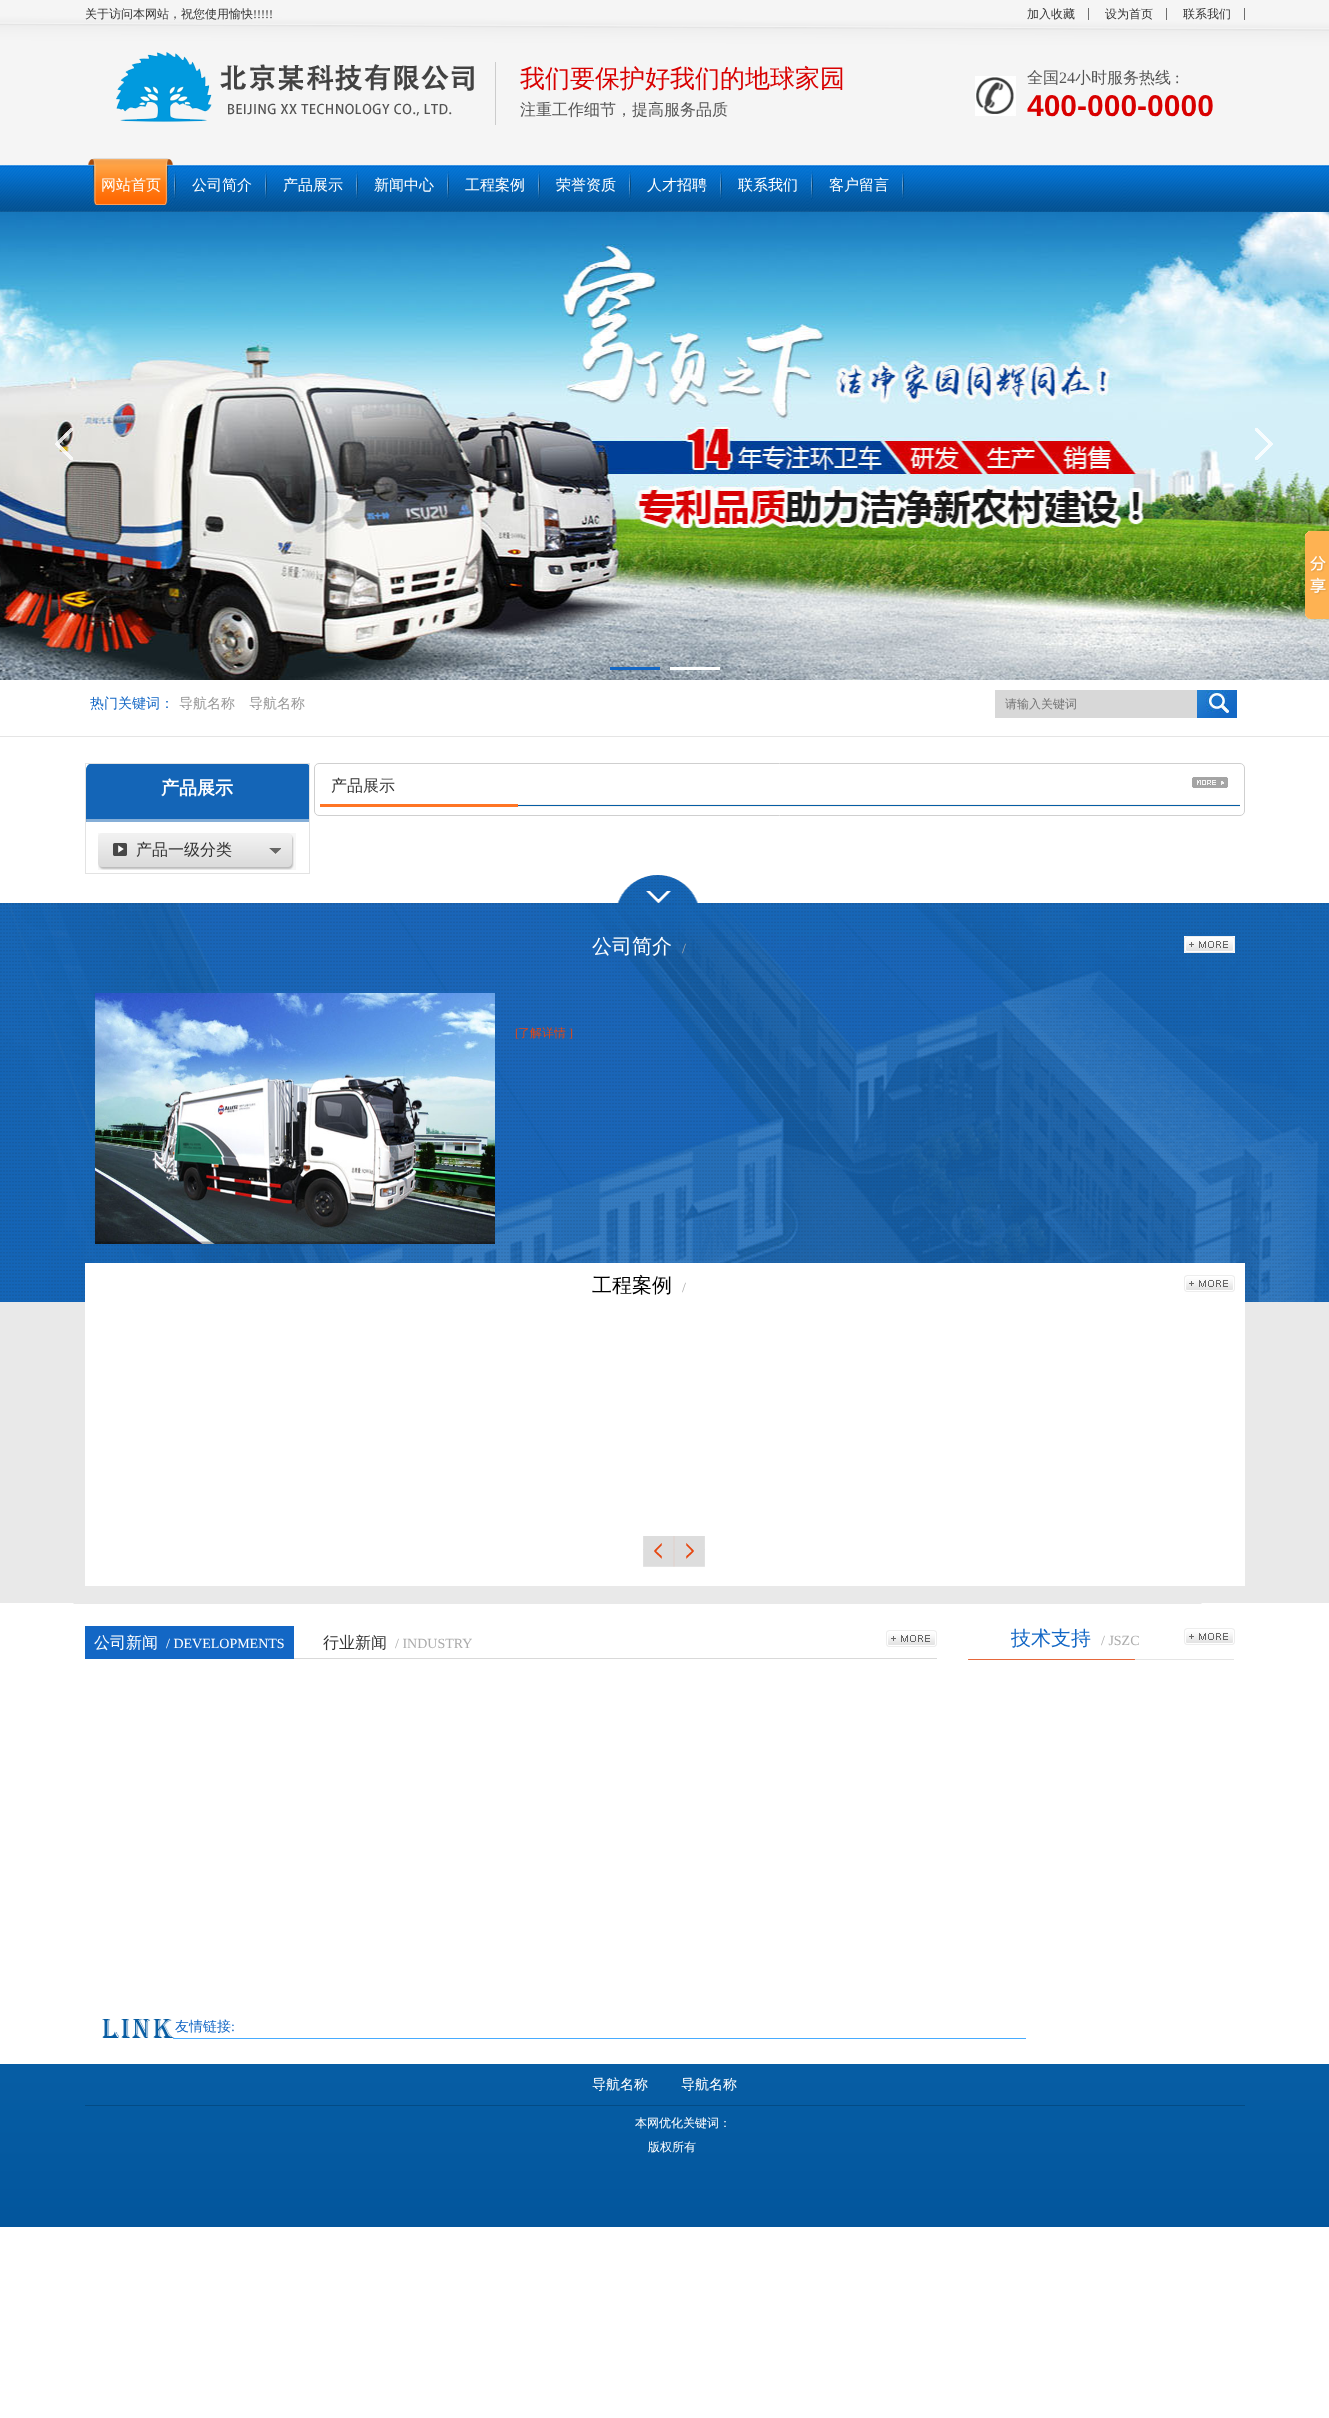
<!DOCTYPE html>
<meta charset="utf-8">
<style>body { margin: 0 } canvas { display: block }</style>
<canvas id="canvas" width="1329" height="2418"></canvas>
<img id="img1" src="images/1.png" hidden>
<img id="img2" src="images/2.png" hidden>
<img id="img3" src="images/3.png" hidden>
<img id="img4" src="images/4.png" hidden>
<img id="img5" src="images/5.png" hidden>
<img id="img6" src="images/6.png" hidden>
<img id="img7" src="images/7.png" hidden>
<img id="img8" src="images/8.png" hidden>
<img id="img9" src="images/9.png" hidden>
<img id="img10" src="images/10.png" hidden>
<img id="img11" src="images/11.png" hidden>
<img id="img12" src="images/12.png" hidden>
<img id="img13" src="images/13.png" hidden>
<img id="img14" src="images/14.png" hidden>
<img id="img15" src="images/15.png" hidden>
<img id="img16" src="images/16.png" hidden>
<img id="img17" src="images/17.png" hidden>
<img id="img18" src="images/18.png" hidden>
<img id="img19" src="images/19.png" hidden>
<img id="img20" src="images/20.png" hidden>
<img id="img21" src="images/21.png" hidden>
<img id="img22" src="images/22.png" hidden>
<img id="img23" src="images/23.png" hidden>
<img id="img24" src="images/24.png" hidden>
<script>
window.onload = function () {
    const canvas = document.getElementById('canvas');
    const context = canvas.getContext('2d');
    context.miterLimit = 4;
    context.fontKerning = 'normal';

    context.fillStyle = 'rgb(255, 255, 255)';
    context.fillRect(0, 0, 1329, 2418);
    context.drawImage(document.getElementById('img1'), 0, 0, 1329, 212);
    context.fillStyle = 'rgb(110, 110, 110)';
    context.fillRect(1088, 8, 1, 12);
    context.fillRect(1166, 8, 1, 12);
    context.fillRect(1244, 8, 1, 12);
    context.drawImage(document.getElementById('img2'), 116, 52, 358, 70);
    context.fillStyle = 'rgb(204, 204, 204)';
    context.fillRect(495, 62, 1, 63);
    context.drawImage(document.getElementById('img3'), 975, 76, 41, 40);
    context.drawImage(document.getElementById('img4'), 174, 171, 2, 29);
    context.drawImage(document.getElementById('img5'), 88, 158, 77, 47);
    context.drawImage(document.getElementById('img6'), 165, 158, 8, 47);
    context.drawImage(document.getElementById('img4'), 265, 171, 2, 29);
    context.drawImage(document.getElementById('img4'), 356, 171, 2, 29);
    context.drawImage(document.getElementById('img4'), 447, 171, 2, 29);
    context.drawImage(document.getElementById('img4'), 538, 171, 2, 29);
    context.drawImage(document.getElementById('img4'), 629, 171, 2, 29);
    context.drawImage(document.getElementById('img4'), 720, 171, 2, 29);
    context.drawImage(document.getElementById('img4'), 811, 171, 2, 29);
    context.drawImage(document.getElementById('img4'), 902, 171, 2, 29);
    context.drawImage(document.getElementById('img7'), 0, 212, 1329, 468);
    context.drawImage(document.getElementById('img8'), 55, 428, 18, 32);
    context.drawImage(document.getElementById('img9'), 1255, 428, 18, 32);
    context.fillStyle = 'rgb(19, 103, 197)';
    context.fillRect(610, 667, 50, 3);
    context.fillStyle = 'rgb(255, 255, 255)';
    context.fillRect(670, 667, 50, 3);
    context.drawImage(document.getElementById('img10'), 1305, 531, 24, 88);
    context.fillStyle = 'rgb(229, 229, 229)';
    context.fillRect(0, 736, 1329, 1);
    context.fillStyle = 'rgb(216, 216, 216)';
    context.fillRect(995, 690, 202, 28);
    context.drawImage(document.getElementById('img11'), 1197, 690, 40, 28);
    context.strokeStyle = 'rgb(227, 227, 227)';
    context.strokeRect(85.5, 763.5, 224, 110);
    context.drawImage(document.getElementById('img12'), 86, 764, 223, 58);
    context.drawImage(document.getElementById('img13'), 98, 833, 198, 37);
    context.drawImage(document.getElementById('img14'), 269, 848, 12, 7);
    context.beginPath();
    context.roundRect(314.5, 763.5, 930, 52, 4.5);
    context.strokeStyle = 'rgb(207, 207, 207)';
    context.stroke();
    context.drawImage(document.getElementById('img15'), 320, 804, 920, 3);
    context.drawImage(document.getElementById('img16'), 1192, 777, 36, 11);
    context.drawImage(document.getElementById('img17'), 0, 875, 1329, 729);
    context.drawImage(document.getElementById('img18'), 1184, 936, 51, 17);
    context.drawImage(document.getElementById('img19'), 95, 993, 400, 251);
    context.fillStyle = 'rgb(255, 255, 255)';
    context.fillRect(85, 1263, 1160, 323);
    context.drawImage(document.getElementById('img18'), 1184, 1275, 51, 17);
    context.drawImage(document.getElementById('img20'), 643, 1536, 31, 31);
    context.drawImage(document.getElementById('img21'), 674, 1536, 31, 31);
    context.fillStyle = 'rgb(217, 217, 217)';
    context.fillRect(294, 1658, 643, 1);
    context.fillStyle = 'rgb(19, 103, 197)';
    context.fillRect(85, 1626, 209, 33);
    context.drawImage(document.getElementById('img18'), 886, 1630, 51, 17);
    context.drawImage(document.getElementById('img22'), 968, 1659, 266, 1);
    context.drawImage(document.getElementById('img18'), 1184, 1628, 51, 17);
    context.drawImage(document.getElementById('img23'), 102, 2019, 924, 20);
    context.drawImage(document.getElementById('img24'), 0, 2064, 1329, 163);
    context.fillStyle = 'rgb(3, 75, 132)';
    context.fillRect(85, 2105, 1160, 1);
    context.font = '500 12px WenQuanYi Zen Hei';
    context.fillStyle = 'rgb(51, 51, 51)';
    context.fillText('关于访问本网站，祝您使用愉快', 85, 18);
    context.font = '12px Liberation Serif';
    context.fillText('!!!!!', 253, 18);
    context.font = '500 12px WenQuanYi Zen Hei';
    context.fillText('加入收藏', 1027, 18);
    context.fillText('设为首页', 1105, 18);
    context.fillText('联系我们', 1183, 18);
    context.font = '500 25px WenQuanYi Zen Hei';
    context.fillStyle = 'rgb(216, 0, 0)';
    context.fillText('我们要保护好我们的地球家园', 520, 87);
    context.font = '500 16px WenQuanYi Zen Hei';
    context.fillStyle = 'rgb(85, 85, 85)';
    context.fillText('注重工作细节，提高服务品质', 520, 115);
    context.fillText('全国', 1027, 83);
    context.font = '16px Liberation Serif';
    context.fillText('24', 1059, 83);
    context.font = '500 16px WenQuanYi Zen Hei';
    context.fillText('小时服务热线', 1075, 83);
    context.font = '16px Liberation Serif';
    context.fillText(':', 1175, 83);
    context.font = 'bold 30px Liberation Sans';
    context.fillStyle = 'rgb(216, 0, 0)';
    context.fillText('400-000-0000', 1027, 116);
    context.font = '500 15px WenQuanYi Zen Hei';
    context.fillStyle = 'rgb(255, 255, 255)';
    context.fillText('网站首页', 101, 190);
    context.fillText('公司简介', 192, 190);
    context.fillText('产品展示', 283, 190);
    context.fillText('新闻中心', 374, 190);
    context.fillText('工程案例', 465, 190);
    context.fillText('荣誉资质', 556, 190);
    context.fillText('人才招聘', 647, 190);
    context.fillText('联系我们', 738, 190);
    context.fillText('客户留言', 829, 190);
    context.font = '500 14px WenQuanYi Zen Hei';
    context.fillStyle = 'rgb(19, 103, 197)';
    context.fillText('热门关键词：', 90, 708);
    context.fillStyle = 'rgb(152, 152, 152)';
    context.fillText('导航名称', 179, 708);
    context.fillText('导航名称', 249, 708);
    context.font = '500 12px WenQuanYi Zen Hei';
    context.fillStyle = 'rgb(117, 117, 117)';
    context.fillText('请输入关键词', 1005, 708);
    context.font = 'bold 18px WenQuanYi Zen Hei';
    context.fillStyle = 'rgb(255, 255, 255)';
    context.fillText('产品展示', 161, 794);
    context.font = '500 16px WenQuanYi Zen Hei';
    context.fillStyle = 'rgb(51, 51, 51)';
    context.fillText('产品一级分类', 136, 855);
    context.fillText('产品展示', 331, 791);
    context.font = '500 20px WenQuanYi Zen Hei';
    context.fillStyle = 'rgb(255, 255, 255)';
    context.fillText('公司简介', 592, 953);
    context.font = '14px Liberation Serif';
    context.fillStyle = 'rgb(172, 172, 172)';
    context.fillText('/', 682, 953);
    context.font = '12px Liberation Serif';
    context.fillStyle = 'rgb(230, 71, 16)';
    context.fillText('[', 515, 1037);
    context.font = '500 12px WenQuanYi Zen Hei';
    context.fillText('了解详情', 518, 1037);
    context.font = '12px Liberation Serif';
    context.fillText(']', 569, 1037);
    context.font = '500 20px WenQuanYi Zen Hei';
    context.fillStyle = 'rgb(0, 0, 0)';
    context.fillText('工程案例', 592, 1292);
    context.font = '14px Liberation Serif';
    context.fillStyle = 'rgb(172, 172, 172)';
    context.fillText('/', 682, 1292);
    context.font = '500 16px WenQuanYi Zen Hei';
    context.fillStyle = 'rgb(255, 255, 255)';
    context.fillText('公司新闻', 94, 1648);
    context.font = '14px Liberation Serif';
    context.fillText('/ DEVELOPMENTS', 166, 1648);
    context.font = '500 16px WenQuanYi Zen Hei';
    context.fillStyle = 'rgb(51, 51, 51)';
    context.fillText('行业新闻', 323, 1648);
    context.font = '14px Liberation Serif';
    context.fillStyle = 'rgb(172, 172, 172)';
    context.fillText('/ INDUSTRY', 395, 1648);
    context.font = '500 20px WenQuanYi Zen Hei';
    context.fillStyle = 'rgb(19, 103, 197)';
    context.fillText('技术支持', 1011, 1645);
    context.font = '14px Liberation Serif';
    context.fillStyle = 'rgb(172, 172, 172)';
    context.fillText('/ JSZC', 1101, 1645);
    context.font = '500 14px WenQuanYi Zen Hei';
    context.fillStyle = 'rgb(19, 103, 197)';
    context.fillText('友情链接', 175, 2031);
    context.font = '14px Liberation Serif';
    context.fillText(':', 231, 2031);
    context.font = '500 14px WenQuanYi Zen Hei';
    context.fillStyle = 'rgb(255, 255, 255)';
    context.fillText('导航名称', 592, 2089);
    context.fillText('导航名称', 681, 2089);
    context.font = '500 12px WenQuanYi Zen Hei';
    context.fillText('本网优化关键词：', 635, 2127);
    context.fillText('版权所有', 648, 2151);
};
</script>
